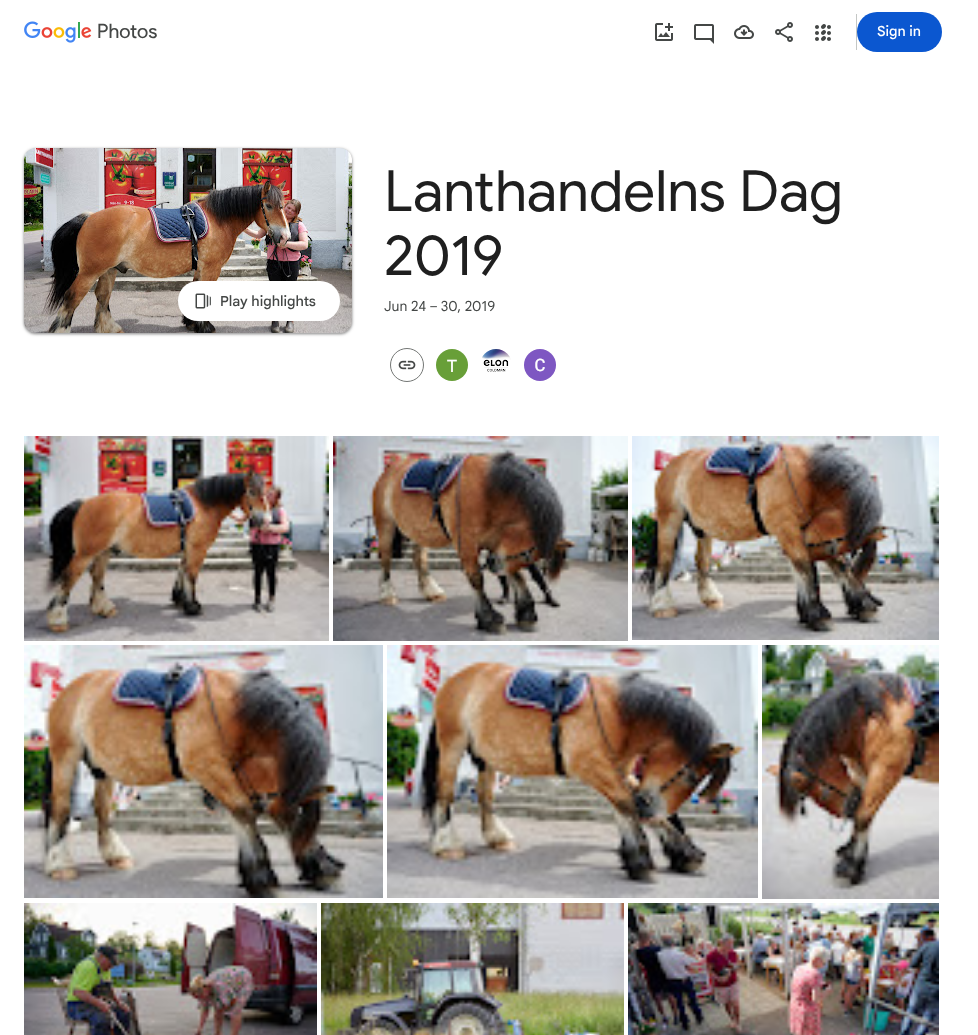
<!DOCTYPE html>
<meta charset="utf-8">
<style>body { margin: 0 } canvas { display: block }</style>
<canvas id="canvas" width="978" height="1035"></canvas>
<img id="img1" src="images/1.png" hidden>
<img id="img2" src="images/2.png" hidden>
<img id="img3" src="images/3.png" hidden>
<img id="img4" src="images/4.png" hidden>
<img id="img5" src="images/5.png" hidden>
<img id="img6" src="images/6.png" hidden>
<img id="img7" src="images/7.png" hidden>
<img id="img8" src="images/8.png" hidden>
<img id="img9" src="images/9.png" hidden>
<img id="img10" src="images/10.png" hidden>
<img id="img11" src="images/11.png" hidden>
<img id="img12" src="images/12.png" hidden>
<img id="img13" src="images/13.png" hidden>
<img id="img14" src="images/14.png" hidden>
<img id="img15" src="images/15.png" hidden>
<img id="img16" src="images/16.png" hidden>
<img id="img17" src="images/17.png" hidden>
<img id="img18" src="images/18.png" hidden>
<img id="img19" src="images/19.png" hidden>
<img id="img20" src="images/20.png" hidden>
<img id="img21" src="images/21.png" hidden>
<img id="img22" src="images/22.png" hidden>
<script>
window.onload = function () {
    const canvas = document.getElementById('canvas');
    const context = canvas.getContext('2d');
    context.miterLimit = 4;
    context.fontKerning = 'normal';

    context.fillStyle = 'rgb(255, 255, 255)';
    context.fillRect(0, 0, 978, 1035);
    context.drawImage(document.getElementById('img1'), 24, 21, 68, 22);
    context.drawImage(document.getElementById('img2'), 655, 23, 18, 18);
    context.drawImage(document.getElementById('img3'), 694, 24, 20, 20);
    context.drawImage(document.getElementById('img4'), 734, 25, 20, 14);
    context.drawImage(document.getElementById('img5'), 775, 22, 18, 20);
    context.drawImage(document.getElementById('img6'), 822, 24, 4, 16);
    context.fillStyle = 'rgb(196, 199, 197)';
    context.fillRect(856, 14, 1, 36);
    context.fillStyle = 'rgba(0, 0, 0, 0.15)';
    context.filter = 'blur(1.5px)';
    context.beginPath();
    context.roundRect(23, 148, 330, 187, 13);
    context.fill();
    context.filter = 'none';
    context.fillStyle = 'rgba(0, 0, 0, 0.3)';
    context.filter = 'blur(1px)';
    context.beginPath();
    context.roundRect(24, 149, 328, 185, 12);
    context.fill();
    context.filter = 'none';
    context.drawImage(document.getElementById('img7'), 24, 148, 328, 185);
    context.fillStyle = 'rgb(255, 255, 255)';
    context.beginPath();
    context.roundRect(178, 281, 162, 40, 20);
    context.fill();
    context.drawImage(document.getElementById('img8'), 195, 293, 16, 16);
    context.beginPath();
    context.arc(407, 365, 16.5, 0, 2 * Math.PI);
    context.strokeStyle = 'rgb(116, 119, 117)';
    context.stroke();
    context.drawImage(document.getElementById('img9'), 398, 360, 18, 10);
    context.drawImage(document.getElementById('img10'), 436, 349, 32, 32);
    context.drawImage(document.getElementById('img11'), 482, 349, 29, 23);
    context.drawImage(document.getElementById('img12'), 524, 349, 32, 32);
    context.drawImage(document.getElementById('img13'), 24, 436, 305, 205);
    context.drawImage(document.getElementById('img14'), 333, 436, 295, 205);
    context.drawImage(document.getElementById('img15'), 632, 436, 307, 204);
    context.drawImage(document.getElementById('img16'), 24, 645, 359, 253);
    context.drawImage(document.getElementById('img17'), 387, 645, 371, 253);
    context.drawImage(document.getElementById('img18'), 762, 645, 177, 254);
    context.drawImage(document.getElementById('img19'), 24, 903, 293, 132);
    context.drawImage(document.getElementById('img20'), 321, 903, 303, 132);
    context.drawImage(document.getElementById('img21'), 628, 903, 311, 132);
    context.drawImage(document.getElementById('img22'), 815, 25, 16, 16);
    context.fillStyle = 'rgb(11, 87, 208)';
    context.beginPath();
    context.roundRect(857, 12, 85, 40, 20);
    context.fill();
    context.font = '20px Product Sans';
    context.fillStyle = 'rgb(68, 71, 70)';
    context.fillText('Photos', 97, 38);
    context.font = '500 14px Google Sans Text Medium';
    context.fillText('Play highlights', 220, 306);
    context.font = '57px Google Sans';
    context.fillStyle = 'rgb(31, 31, 31)';
    context.fillText('Lanthandelns Dag', 384, 211);
    context.fillText('2019', 384, 275);
    context.font = '14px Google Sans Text';
    context.fillStyle = 'rgb(68, 71, 70)';
    context.fillText('Jun 24 – 30, 2019', 384, 311);
    context.font = '500 14px Google Sans Text Medium';
    context.fillStyle = 'rgb(255, 255, 255)';
    context.fillText('Sign in', 877, 36);
};
</script>
